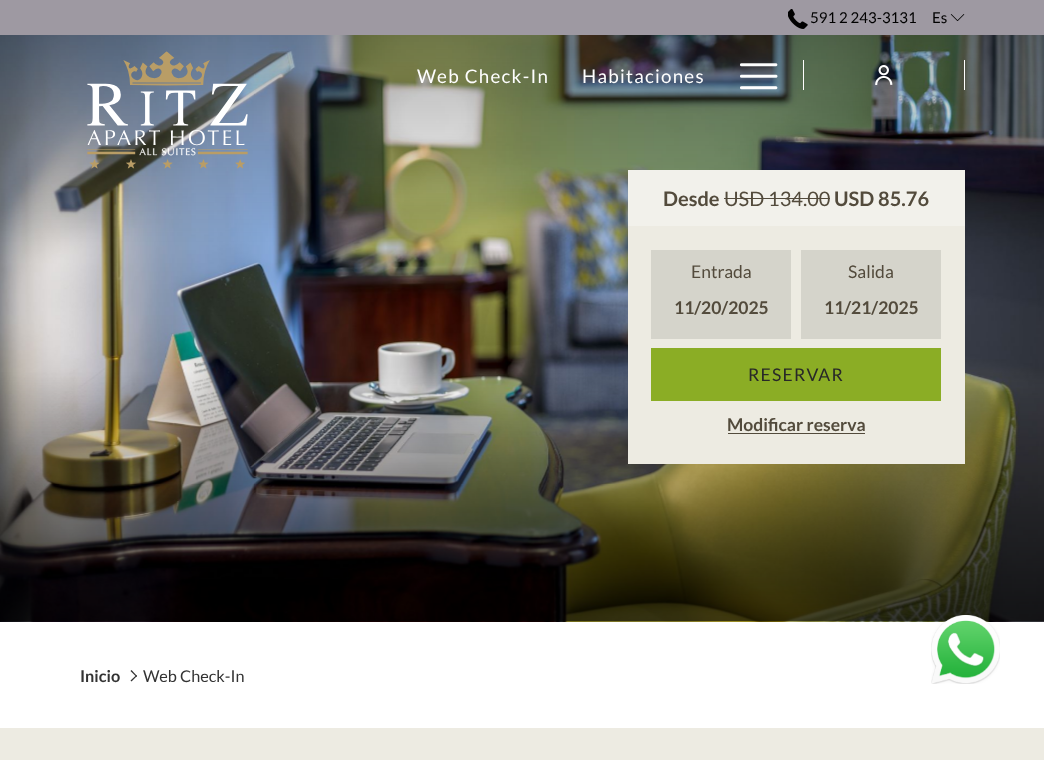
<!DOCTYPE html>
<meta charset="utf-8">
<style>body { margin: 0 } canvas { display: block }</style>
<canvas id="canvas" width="1044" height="760"></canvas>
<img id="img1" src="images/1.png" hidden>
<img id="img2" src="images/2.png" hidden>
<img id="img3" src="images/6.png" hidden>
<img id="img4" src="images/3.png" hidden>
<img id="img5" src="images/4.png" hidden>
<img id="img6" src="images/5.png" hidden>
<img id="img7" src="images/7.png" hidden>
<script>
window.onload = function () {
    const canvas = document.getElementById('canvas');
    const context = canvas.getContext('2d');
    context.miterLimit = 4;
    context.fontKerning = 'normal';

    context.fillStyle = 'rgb(255, 255, 255)';
    context.fillRect(0, 0, 1044, 760);
    context.fillStyle = 'rgb(158, 153, 162)';
    context.fillRect(0, 0, 1044, 35);
    context.drawImage(document.getElementById('img1'), 788, 9, 20, 20);
    context.drawImage(document.getElementById('img2'), 950, 14, 15, 7);
    context.drawImage(document.getElementById('img3'), 0, 35, 1044, 587);
    context.drawImage(document.getElementById('img4'), 87, 51, 161, 118);
    context.drawImage(document.getElementById('img5'), 740, 63, 38, 27);
    context.fillStyle = 'rgb(254, 254, 254)';
    context.fillRect(964, 60, 1, 30);
    context.fillRect(803, 60, 1, 30);
    context.drawImage(document.getElementById('img6'), 875, 65, 18, 20);
    context.fillStyle = 'rgb(237, 235, 226)';
    context.fillRect(628, 226, 337, 238);
    context.fillStyle = 'rgb(242, 241, 235)';
    context.fillRect(628, 170, 337, 56);
    context.fillStyle = 'rgb(83, 75, 60)';
    context.fillRect(724, 198, 106, 1);
    context.fillStyle = 'rgb(213, 212, 203)';
    context.fillRect(651, 250, 140, 89);
    context.fillRect(801, 250, 140, 89);
    context.fillStyle = 'rgb(139, 173, 37)';
    context.fillRect(651, 348, 290, 53);
    context.fillStyle = 'rgb(83, 75, 60)';
    context.fillRect(728, 433, 137, 1);
    context.fillStyle = 'rgb(51, 51, 51)';
    context.beginPath();
    context.moveTo(130.5, 671);
    context.lineTo(131.5, 670);
    context.lineTo(137, 676);
    context.lineTo(136.5, 677);
    context.closePath();
    context.fill();
    context.beginPath();
    context.moveTo(130.5, 680.5);
    context.lineTo(136.5, 675);
    context.lineTo(137, 676);
    context.lineTo(131.5, 681.5);
    context.closePath();
    context.fill();
    context.fillStyle = 'rgb(237, 235, 226)';
    context.fillRect(0, 728, 1044, 32);
    context.drawImage(document.getElementById('img7'), 931, 615, 69, 69);
    context.font = '15px Lato';
    context.fillStyle = 'rgb(0, 0, 0)';
    context.fillText('591 2 243-3131', 810, 23);
    context.fillText('Es', 932, 23);
    context.letterSpacing = '1.25px';
    context.font = '18.75px Lato';
    context.fillStyle = 'rgb(254, 254, 254)';
    context.fillText('Web Check-In', 417, 83);
    context.fillText('Habitaciones', 582, 83);
    context.letterSpacing = '0px';
    context.font = 'bold 20px Lato';
    context.fillStyle = 'rgb(83, 75, 60)';
    context.fillText('Desde', 663, 206);
    context.font = '20px Lato';
    context.fillText('USD 134.00', 724, 206);
    context.font = 'bold 20px Lato';
    context.fillText('USD 85.76', 834, 206);
    context.font = '17.5px Lato';
    context.fillText('Entrada', 691, 278);
    context.font = 'bold 17.5px Lato';
    context.fillText('11/20/2025', 674, 314);
    context.font = '17.5px Lato';
    context.fillText('Salida', 848, 278);
    context.font = 'bold 17.5px Lato';
    context.fillText('11/21/2025', 824, 314);
    context.letterSpacing = '1.25px';
    context.font = '17.5px Lato';
    context.fillStyle = 'rgb(40, 40, 40)';
    context.fillText('RESERVAR', 748, 381);
    context.letterSpacing = '0px';
    context.font = 'bold 17.5px Lato';
    context.fillStyle = 'rgb(83, 75, 60)';
    context.fillText('Modificar reserva', 727, 431);
    context.font = 'bold 16.25px Lato';
    context.fillStyle = 'rgb(51, 51, 51)';
    context.fillText('Inicio', 80, 682);
    context.font = '16.25px Lato';
    context.fillText('Web Check-In', 143, 682);
};
</script>
